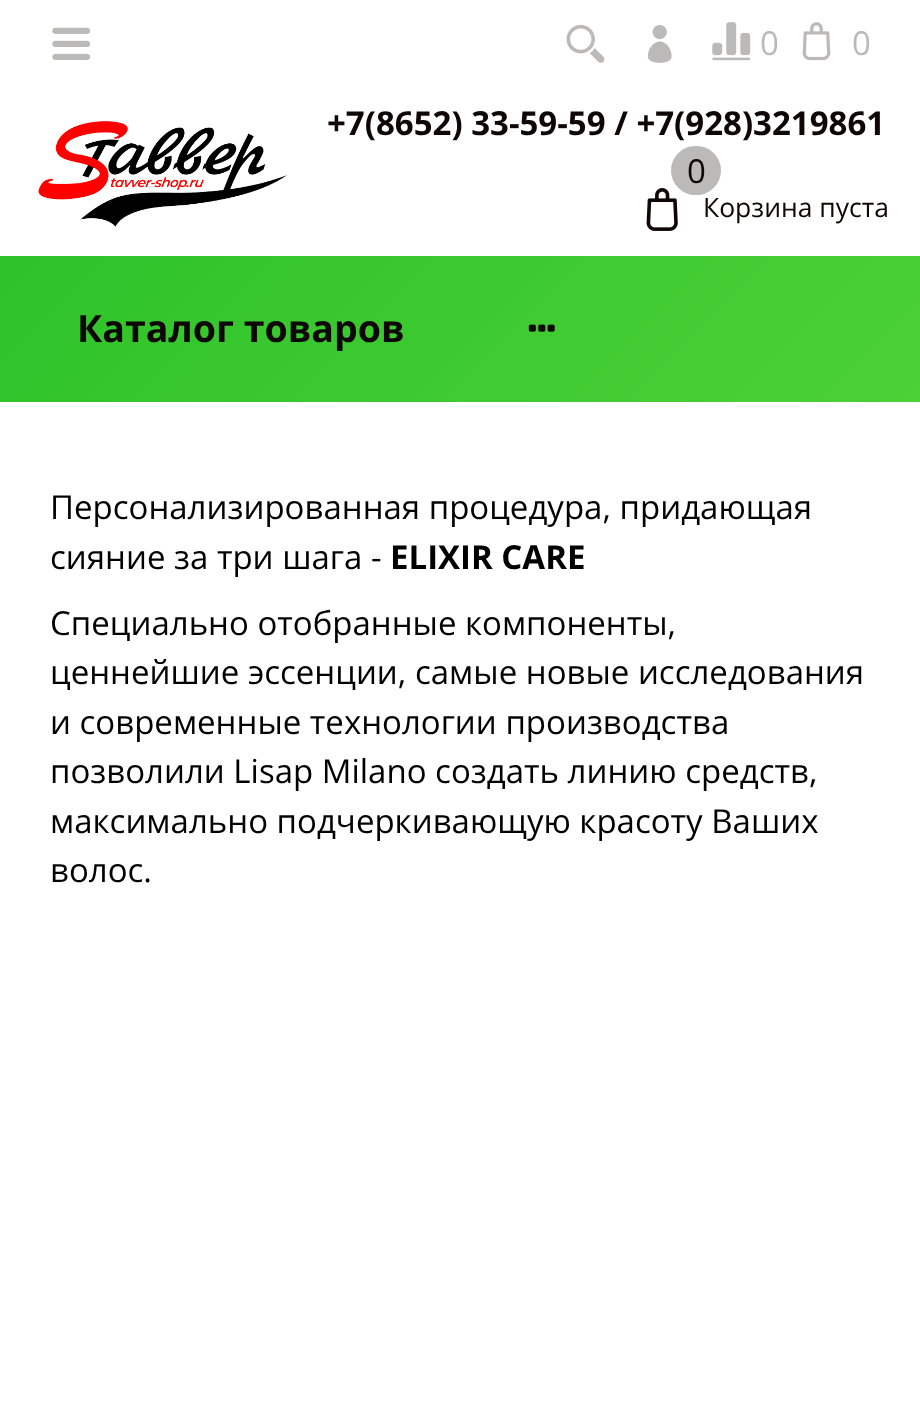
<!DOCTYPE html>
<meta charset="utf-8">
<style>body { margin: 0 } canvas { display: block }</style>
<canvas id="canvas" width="920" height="1410"></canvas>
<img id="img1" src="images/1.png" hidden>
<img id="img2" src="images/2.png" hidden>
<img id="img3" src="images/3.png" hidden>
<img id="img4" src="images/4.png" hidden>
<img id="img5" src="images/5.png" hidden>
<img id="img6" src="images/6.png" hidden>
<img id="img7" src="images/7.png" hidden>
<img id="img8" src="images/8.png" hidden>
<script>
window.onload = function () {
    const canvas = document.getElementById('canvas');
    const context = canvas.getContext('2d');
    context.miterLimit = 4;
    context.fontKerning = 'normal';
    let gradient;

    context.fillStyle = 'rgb(255, 255, 255)';
    context.fillRect(0, 0, 920, 1410);
    context.drawImage(document.getElementById('img1'), 52, 27, 39, 33);
    context.drawImage(document.getElementById('img2'), 566, 25, 39, 38);
    context.drawImage(document.getElementById('img3'), 647, 25, 25, 38);
    context.drawImage(document.getElementById('img4'), 712, 22, 39, 39);
    context.drawImage(document.getElementById('img5'), 802, 22, 29, 39);
    context.drawImage(document.getElementById('img6'), 38, 121, 249, 106);
    context.drawImage(document.getElementById('img7'), 646, 188, 32, 43);
    context.fillStyle = 'rgb(188, 185, 185)';
    context.beginPath();
    context.roundRect(671, 146, 50, 49, 24.5);
    context.fill();
    gradient = context.createLinearGradient(194, 62, 727, 595);
    gradient.addColorStop(0, 'rgb(46, 194, 42)');
    gradient.addColorStop(1, 'rgb(76, 209, 55)');
    context.fillStyle = gradient;
    context.fillRect(0, 256, 920, 146);
    context.drawImage(document.getElementById('img8'), 528, 324, 27, 8);
    context.font = '33px Open Sans';
    context.fillStyle = 'rgb(188, 185, 185)';
    context.fillText('0', 760, 55);
    context.fillText('0', 852, 55);
    context.font = 'bold 33px Open Sans';
    context.fillStyle = 'rgb(15, 6, 6)';
    context.fillText('+7(8652) 33-59-59 / +7(928)3219861', 327, 135);
    context.font = '33px Open Sans';
    context.fillText('0', 687, 183);
    context.font = '26.5px Open Sans';
    context.fillText('Корзина пуста', 703, 217);
    context.font = 'bold 37.6px Open Sans';
    context.fillText('Каталог товаров', 77, 342);
    context.font = '33px Open Sans';
    context.fillStyle = 'rgb(0, 0, 0)';
    context.fillText('Персонализированная процедура, придающая', 50, 519);
    context.fillText('сияние за три шага -', 50, 569);
    context.font = 'bold 33px Open Sans';
    context.fillText('ELIXIR CARE', 390, 569);
    context.font = '33px Open Sans';
    context.fillText('Специально отобранные компоненты,', 50, 635);
    context.fillText('ценнейшие эссенции, самые новые исследования', 50, 684);
    context.fillText('и современные технологии производства', 50, 734);
    context.fillText('позволили Lisap Milano создать линию средств,', 50, 783);
    context.fillText('максимально подчеркивающую красоту Ваших', 50, 833);
    context.fillText('волос.', 50, 882);
};
</script>
